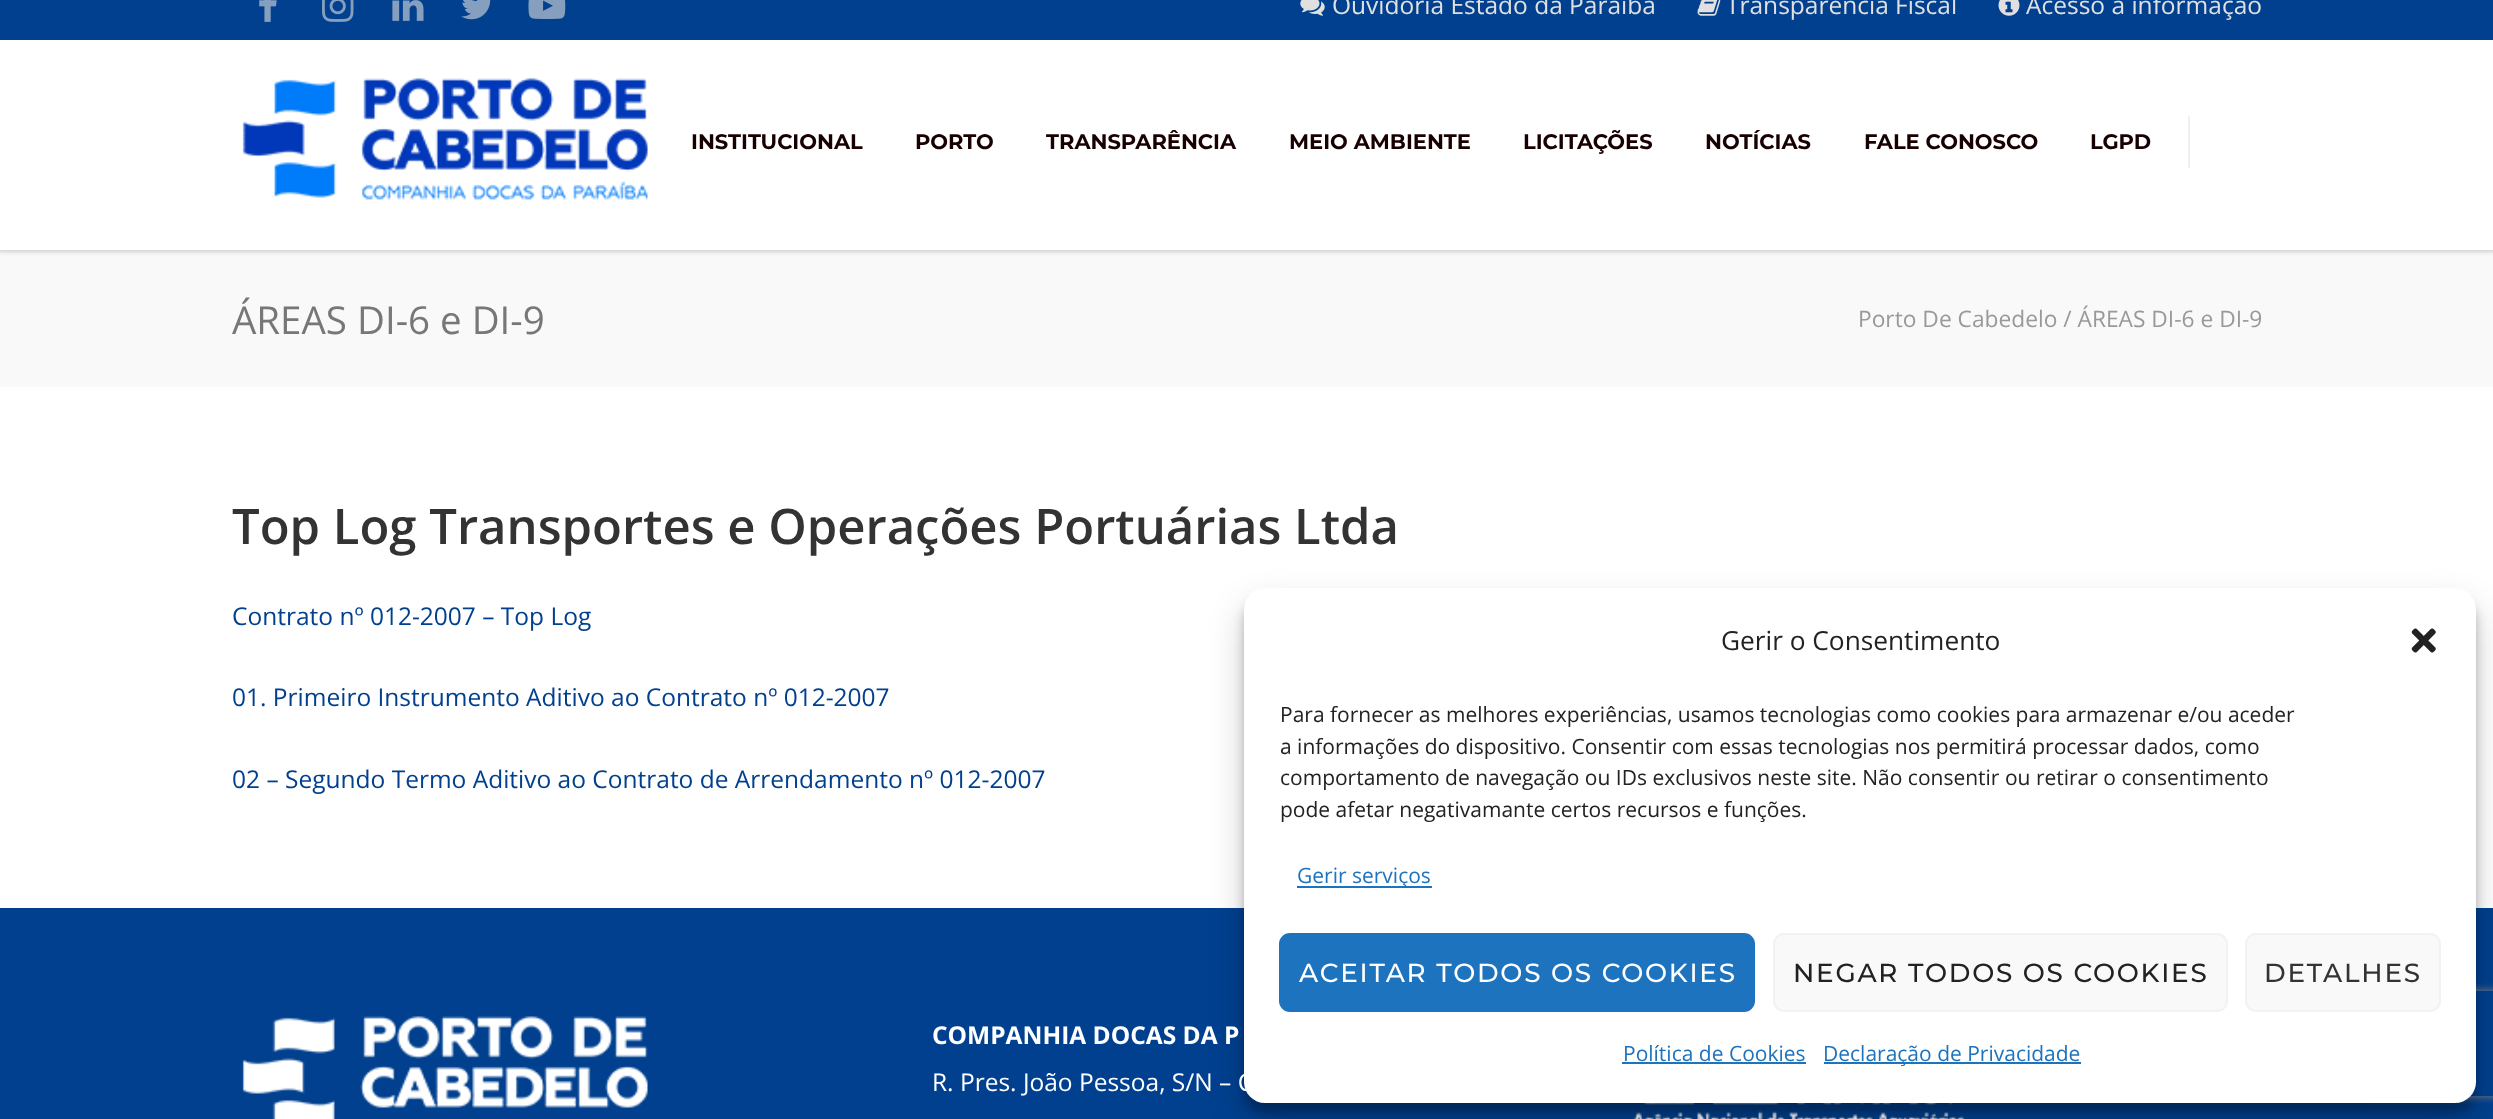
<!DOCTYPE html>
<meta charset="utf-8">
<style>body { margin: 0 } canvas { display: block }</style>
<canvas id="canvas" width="2493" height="1119"></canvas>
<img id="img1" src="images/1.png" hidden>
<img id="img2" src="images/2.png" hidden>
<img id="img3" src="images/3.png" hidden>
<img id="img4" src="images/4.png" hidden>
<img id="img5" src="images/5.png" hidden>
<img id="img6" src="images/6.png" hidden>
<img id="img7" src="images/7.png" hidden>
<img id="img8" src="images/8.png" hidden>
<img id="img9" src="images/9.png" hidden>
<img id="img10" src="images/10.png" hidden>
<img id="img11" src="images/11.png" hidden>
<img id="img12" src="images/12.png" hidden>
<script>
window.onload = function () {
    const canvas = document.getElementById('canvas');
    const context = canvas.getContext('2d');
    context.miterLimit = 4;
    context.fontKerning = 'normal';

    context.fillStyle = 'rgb(255, 255, 255)';
    context.fillRect(0, 0, 2493, 1119);
    context.fillStyle = 'rgb(249, 249, 249)';
    context.fillRect(0, 250, 2493, 137);
    context.fillStyle = 'rgba(0, 0, 0, 0.16)';
    context.filter = 'blur(2px)';
    context.beginPath();
    context.rect(-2, 39, 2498, 213);
    context.fill();
    context.filter = 'none';
    context.fillStyle = 'rgb(0, 64, 143)';
    context.fillRect(0, 0, 2493, 40);
    context.drawImage(document.getElementById('img1'), 259, 0, 18, 22);
    context.drawImage(document.getElementById('img2'), 322, 0, 32, 22);
    context.drawImage(document.getElementById('img3'), 392, 0, 32, 21);
    context.drawImage(document.getElementById('img4'), 461, 0, 30, 20);
    context.drawImage(document.getElementById('img5'), 528, 0, 38, 20);
    context.drawImage(document.getElementById('img6'), 1300, 0, 25, 16);
    context.drawImage(document.getElementById('img7'), 1697, 0, 24, 16);
    context.drawImage(document.getElementById('img8'), 1998, 0, 22, 16);
    context.fillStyle = 'rgb(255, 255, 255)';
    context.fillRect(0, 40, 2493, 210);
    context.drawImage(document.getElementById('img9'), 242, 78, 406, 122);
    context.fillStyle = 'rgb(239, 239, 239)';
    context.fillRect(2188, 116, 2, 52);
    context.fillStyle = 'rgb(0, 64, 143)';
    context.fillRect(0, 908, 2493, 211);
    context.drawImage(document.getElementById('img10'), 242, 1016, 406, 103);
    context.drawImage(document.getElementById('img11'), 1634, 1103, 330, 16);
    context.fillStyle = 'rgba(0, 0, 0, 0.23)';
    context.filter = 'blur(5px)';
    context.beginPath();
    context.roundRect(1244, 599, 1232, 514, 21);
    context.fill();
    context.filter = 'none';
    context.fillStyle = 'rgba(0, 0, 0, 0.19)';
    context.filter = 'blur(17.5px)';
    context.beginPath();
    context.roundRect(1244, 606, 1232, 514, 21);
    context.fill();
    context.filter = 'none';
    context.save();
    context.beginPath();
    context.moveTo(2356, 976);
    context.lineTo(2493, 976);
    context.lineTo(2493, 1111);
    context.lineTo(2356, 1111);
    context.closePath();
    context.moveTo(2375, 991);
    context.lineTo(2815, 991);
    context.bezierCurveTo(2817, 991, 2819, 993, 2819, 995);
    context.lineTo(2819, 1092);
    context.bezierCurveTo(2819, 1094, 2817, 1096, 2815, 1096);
    context.lineTo(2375, 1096);
    context.bezierCurveTo(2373, 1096, 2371, 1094, 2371, 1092);
    context.lineTo(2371, 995);
    context.bezierCurveTo(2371, 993, 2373, 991, 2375, 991);
    context.closePath();
    context.clip('evenodd');
    context.fillStyle = 'rgb(128, 128, 128)';
    context.filter = 'blur(4.5px)';
    context.beginPath();
    context.roundRect(2371, 991, 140, 105, 4);
    context.fill();
    context.filter = 'none';
    context.restore();
    context.fillStyle = 'rgb(255, 255, 255)';
    context.beginPath();
    context.roundRect(1244, 588, 1232, 515, 21);
    context.fill();
    context.drawImage(document.getElementById('img12'), 2411, 628, 25, 25);
    context.fillStyle = 'rgb(30, 115, 190)';
    context.fillRect(1297, 886, 135, 2);
    context.beginPath();
    context.roundRect(1280, 934, 474, 77, 10);
    context.fill();
    context.strokeStyle = 'rgb(30, 115, 190)';
    context.lineWidth = 2;
    context.stroke();
    context.fillStyle = 'rgb(249, 249, 249)';
    context.beginPath();
    context.roundRect(1774, 934, 453, 77, 10);
    context.fill();
    context.strokeStyle = 'rgb(242, 242, 242)';
    context.stroke();
    context.beginPath();
    context.roundRect(2246, 934, 194, 77, 10);
    context.fill();
    context.stroke();
    context.fillStyle = 'rgb(30, 115, 190)';
    context.fillRect(1622, 1062, 184, 2);
    context.fillRect(1824, 1062, 257, 2);
    context.font = '24.5px Open Sans';
    context.fillStyle = 'rgb(224, 224, 224)';
    context.fillText('Ouvidoria Estado da Paraíba', 1332, 14);
    context.fillText('Transparência Fiscal', 1726, 14);
    context.fillText('Acesso à informação', 2026, 14);
    context.font = 'bold 21px Montserrat';
    context.fillStyle = 'rgb(25, 0, 0)';
    context.fillText('INSTITUCIONAL', 691, 149);
    context.fillText('PORTO', 915, 149);
    context.fillText('TRANSPARÊNCIA', 1046, 149);
    context.fillText('MEIO AMBIENTE', 1289, 149);
    context.fillText('LICITAÇÕES', 1523, 149);
    context.fillText('NOTÍCIAS', 1705, 149);
    context.fillText('FALE CONOSCO', 1864, 149);
    context.fillText('LGPD', 2090, 149);
    context.font = '38.5px Open Sans';
    context.fillStyle = 'rgb(119, 119, 119)';
    context.fillText('ÁREAS DI-6 e DI-9', 232, 334);
    context.font = '22.75px Open Sans';
    context.fillStyle = 'rgb(153, 153, 153)';
    context.fillText('Porto De Cabedelo / ÁREAS DI-6 e DI-9', 1858, 327);
    context.font = '600 49px Open Sans';
    context.fillStyle = 'rgb(51, 51, 51)';
    context.fillText('Top Log Transportes e Operações Portuárias Ltda', 232, 544);
    context.font = '24.5px Open Sans';
    context.fillStyle = 'rgb(0, 64, 143)';
    context.fillText('Contrato nº 012-2007 – Top Log', 232, 625);
    context.fillText('01. Primeiro Instrumento Aditivo ao Contrato nº 012-2007', 232, 706);
    context.fillText('02 – Segundo Termo Aditivo ao Contrato de Arrendamento nº 012-2007', 232, 788);
    context.font = 'bold 24.5px Open Sans';
    context.fillStyle = 'rgb(255, 255, 255)';
    context.fillText('COMPANHIA DOCAS DA P', 932, 1044);
    context.font = '24.5px Open Sans';
    context.fillText('R. Pres. João Pessoa, S/N – C', 932, 1091);
    context.font = '26.25px Open Sans';
    context.fillStyle = 'rgb(34, 34, 34)';
    context.fillText('Gerir o Consentimento', 1721, 650);
    context.font = '21px Open Sans';
    context.fillText('Para fornecer as melhores experiências, usamos tecnologias como cookies para armazenar e/ou aceder', 1280, 722);
    context.fillText('a informações do dispositivo. Consentir com essas tecnologias nos permitirá processar dados, como', 1280, 754);
    context.fillText('comportamento de navegação ou IDs exclusivos neste site. Não consentir ou retirar o consentimento', 1280, 785);
    context.fillText('pode afetar negativamante certos recursos e funções.', 1280, 817);
    context.fillStyle = 'rgb(30, 115, 190)';
    context.fillText('Gerir serviços', 1297, 883);
    context.letterSpacing = '1.75px';
    context.font = '500 26.25px Montserrat';
    context.fillStyle = 'rgb(255, 255, 255)';
    context.fillText('ACEITAR TODOS OS COOKIES', 1299, 982);
    context.fillStyle = 'rgb(34, 34, 34)';
    context.fillText('NEGAR TODOS OS COOKIES', 1793, 982);
    context.fillStyle = 'rgb(51, 51, 51)';
    context.fillText('DETALHES', 2264, 982);
    context.letterSpacing = '0px';
    context.font = '21px Open Sans';
    context.fillStyle = 'rgb(30, 115, 190)';
    context.fillText('Política de Cookies', 1623, 1061);
    context.fillText('Declaração de Privacidade', 1823, 1061);
};
</script>
